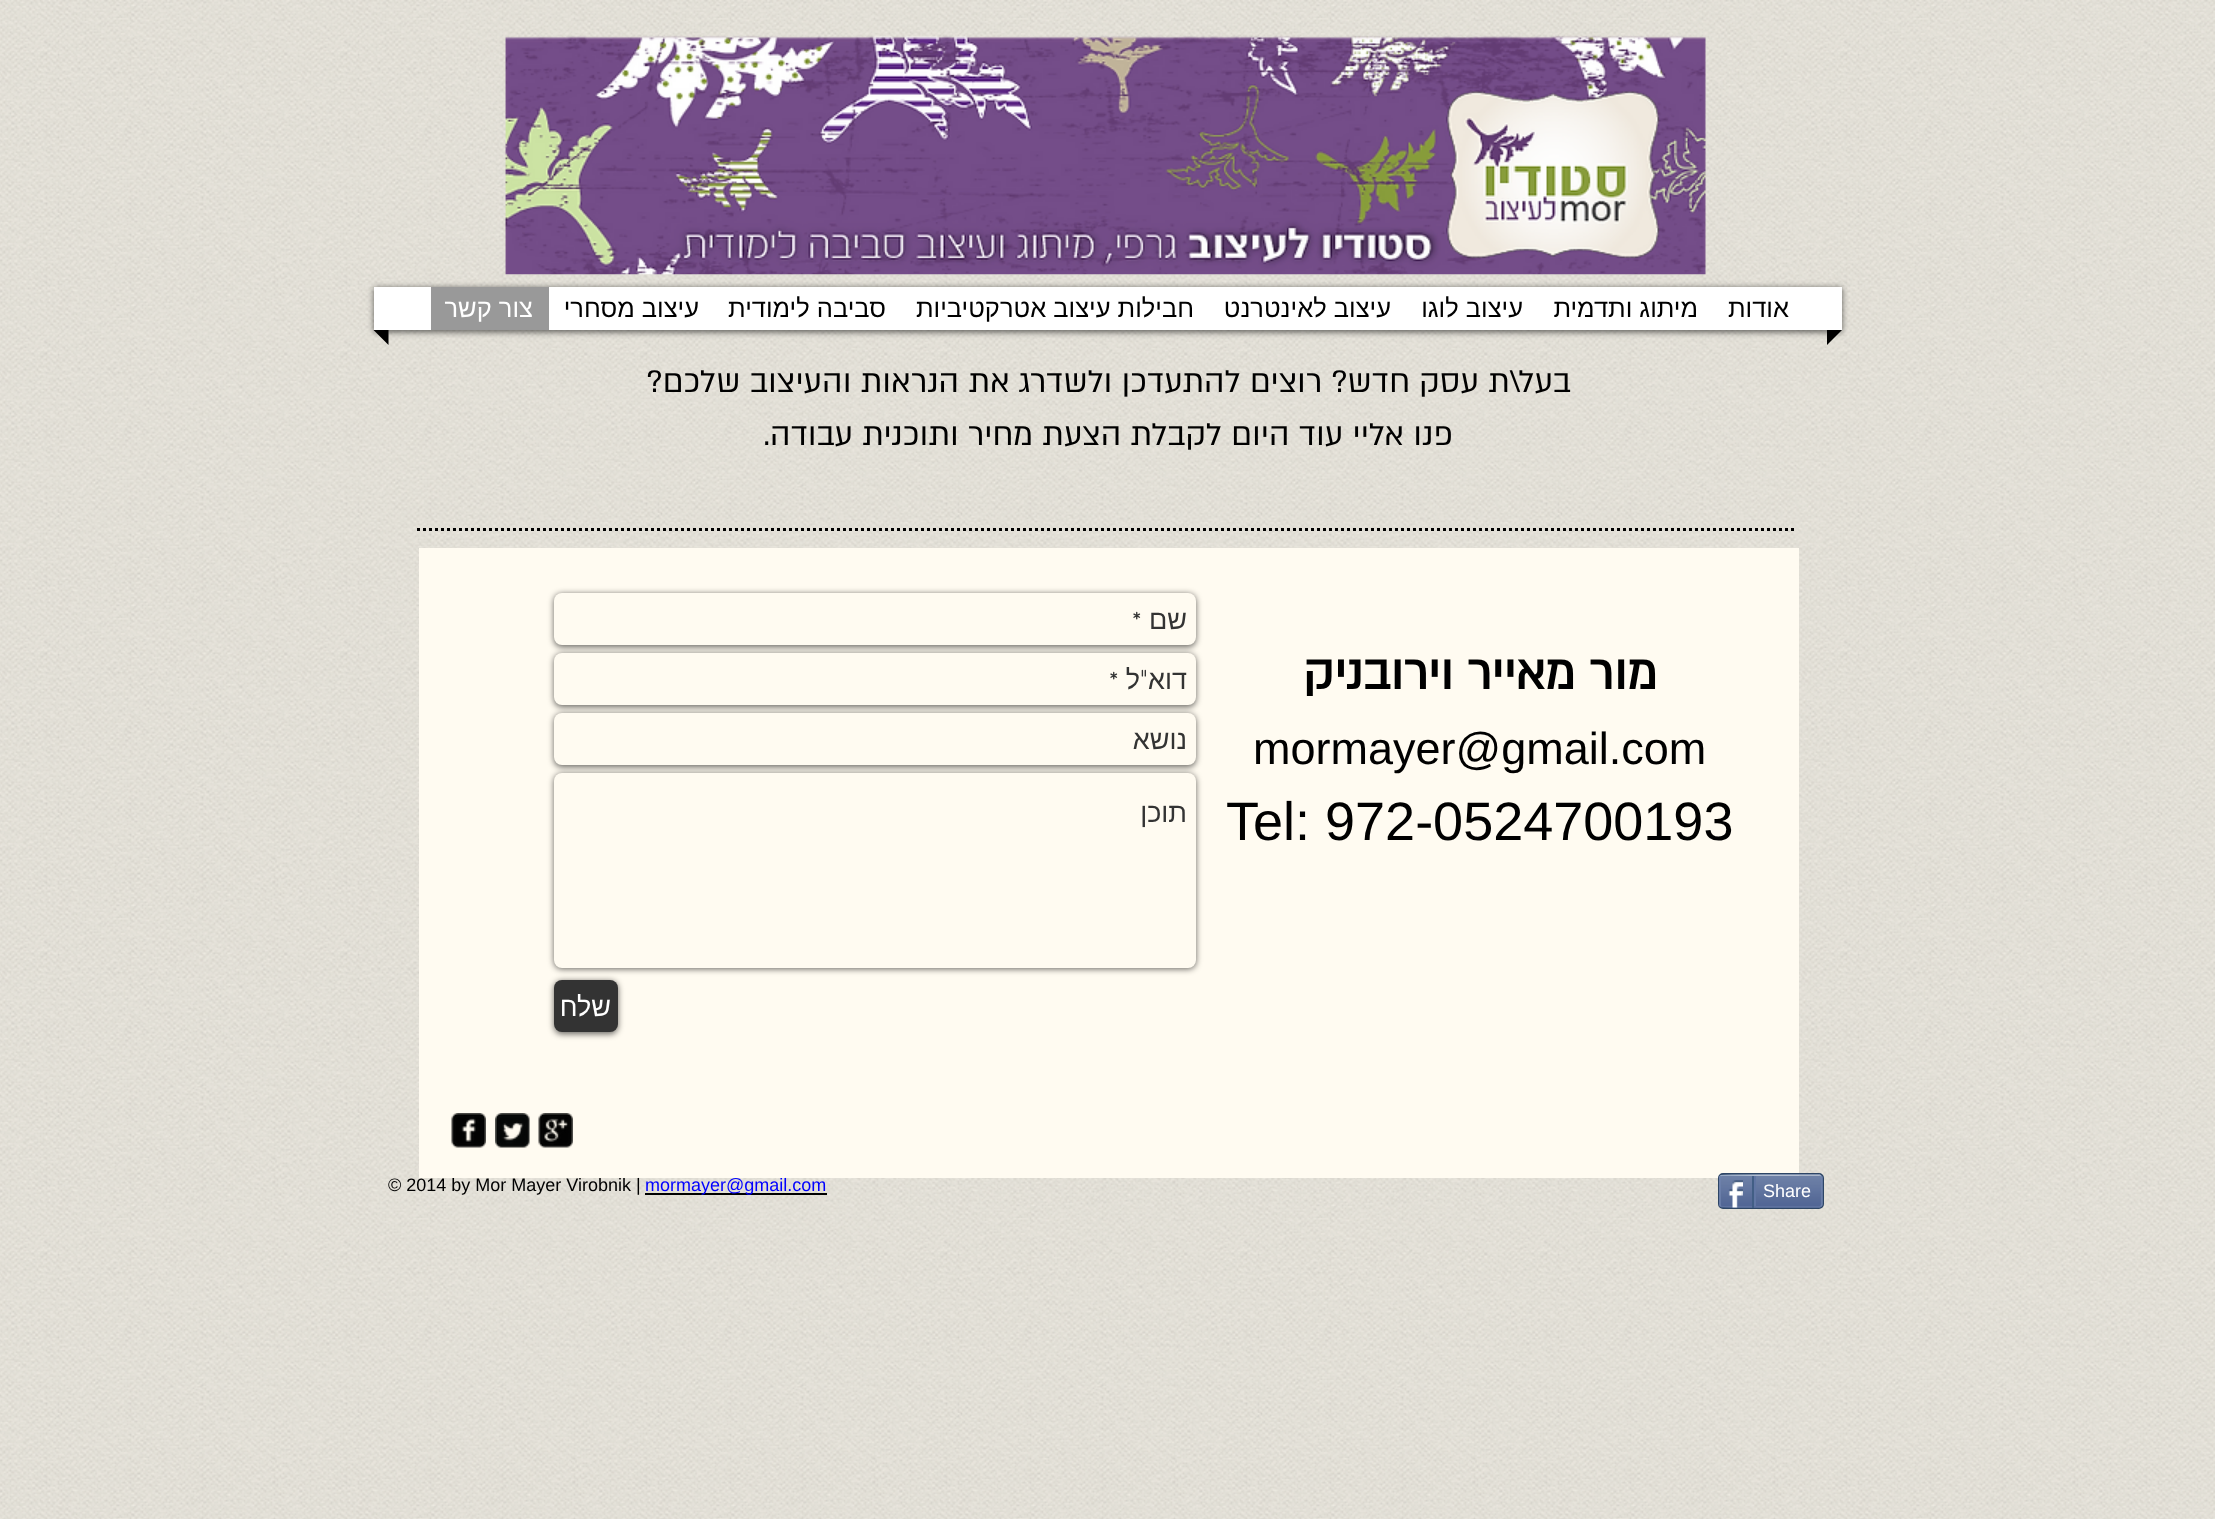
<!DOCTYPE html>
<meta charset="utf-8">
<style>body { margin: 0 } canvas { display: block }</style>
<canvas id="canvas" width="2215" height="1519"></canvas>
<img id="img1" src="images/1.png" hidden>
<img id="img2" src="images/2.png" hidden>
<img id="img3" src="images/3.png" hidden>
<img id="img4" src="images/4.png" hidden>
<img id="img5" src="images/5.png" hidden>
<img id="img6" src="images/6.png" hidden>
<img id="img7" src="images/7.png" hidden>
<script>
window.onload = function () {
    const canvas = document.getElementById('canvas');
    const context = canvas.getContext('2d');
    context.miterLimit = 4;
    context.fontKerning = 'normal';

    context.fillStyle = 'rgb(255, 255, 255)';
    context.fillRect(0, 0, 2215, 1519);
    context.drawImage(document.getElementById('img1'), 0, 0, 2215, 1519);
    context.drawImage(document.getElementById('img2'), 505, 35, 1201, 240);
    context.fillStyle = 'rgb(0, 0, 0)';
    context.beginPath();
    context.moveTo(1827, 330);
    context.lineTo(1842, 330);
    context.lineTo(1827, 345);
    context.closePath();
    context.fill();
    context.beginPath();
    context.moveTo(373.5, 330);
    context.lineTo(388.5, 330);
    context.lineTo(388.5, 345);
    context.closePath();
    context.fill();
    context.fillStyle = 'rgba(0, 0, 0, 0.6)';
    context.filter = 'blur(3px)';
    context.beginPath();
    context.rect(374, 288, 1468, 44);
    context.fill();
    context.filter = 'none';
    context.fillStyle = 'rgb(255, 255, 255)';
    context.fillRect(374, 287, 1468, 43);
    context.fillStyle = 'rgb(153, 153, 153)';
    context.fillRect(431, 287, 118, 43);
    context.beginPath();
    context.moveTo(417, 529.5);
    context.lineTo(1797, 529.5);
    context.strokeStyle = 'rgb(0, 0, 0)';
    context.lineWidth = 3;
    context.setLineDash([3, 3]);
    context.stroke();
    context.fillStyle = 'rgb(255, 251, 241)';
    context.fillRect(419, 548, 1380, 630);
    context.fillStyle = 'rgba(0, 0, 0, 0.6)';
    context.filter = 'blur(3px)';
    context.beginPath();
    context.roundRect(554, 594, 642, 53, 8);
    context.fill();
    context.filter = 'none';
    context.fillStyle = 'rgb(255, 251, 241)';
    context.beginPath();
    context.roundRect(554, 593, 642, 52, 8);
    context.fill();
    context.fillStyle = 'rgba(0, 0, 0, 0.6)';
    context.filter = 'blur(3px)';
    context.beginPath();
    context.roundRect(554, 654, 642, 53, 8);
    context.fill();
    context.filter = 'none';
    context.fillStyle = 'rgb(255, 251, 241)';
    context.beginPath();
    context.roundRect(554, 653, 642, 52, 8);
    context.fill();
    context.fillStyle = 'rgba(0, 0, 0, 0.6)';
    context.filter = 'blur(3px)';
    context.beginPath();
    context.roundRect(554, 714, 642, 53, 8);
    context.fill();
    context.filter = 'none';
    context.fillStyle = 'rgb(255, 251, 241)';
    context.beginPath();
    context.roundRect(554, 713, 642, 52, 8);
    context.fill();
    context.fillStyle = 'rgba(0, 0, 0, 0.6)';
    context.filter = 'blur(3px)';
    context.beginPath();
    context.roundRect(554, 774, 642, 195, 8);
    context.fill();
    context.filter = 'none';
    context.fillStyle = 'rgb(255, 251, 241)';
    context.beginPath();
    context.roundRect(554, 773, 642, 195, 8);
    context.fill();
    context.fillStyle = 'rgba(0, 0, 0, 0.6)';
    context.filter = 'blur(3px)';
    context.beginPath();
    context.roundRect(554, 981, 64, 53, 8);
    context.fill();
    context.filter = 'none';
    context.fillStyle = 'rgb(51, 51, 51)';
    context.beginPath();
    context.roundRect(554, 980, 64, 52, 8);
    context.fill();
    context.drawImage(document.getElementById('img3'), 538, 1113, 35, 35);
    context.drawImage(document.getElementById('img4'), 495, 1113, 35, 35);
    context.drawImage(document.getElementById('img5'), 451, 1113, 35, 35);
    context.beginPath();
    context.roundRect(1719, 1174, 104, 34, 4);
    context.strokeStyle = 'rgb(45, 69, 101)';
    context.lineWidth = 2;
    context.setLineDash([]);
    context.stroke();
    context.drawImage(document.getElementById('img6'), 1719, 1176, 104, 32);
    context.beginPath();
    context.moveTo(1720.5, 1176);
    context.lineTo(1721, 1175.5);
    context.bezierCurveTo(1722.5, 1174.5, 1795, 1175, 1803, 1175);
    context.lineTo(1819.5, 1175);
    context.lineTo(1821, 1176);
    context.strokeStyle = 'rgb(154, 171, 198)';
    context.lineWidth = 1.5;
    context.stroke();
    context.beginPath();
    context.moveTo(1821, 1176);
    context.bezierCurveTo(1821.5, 1176.5, 1822, 1177, 1822, 1177.5);
    context.lineTo(1822, 1204.5);
    context.bezierCurveTo(1822, 1205, 1821.5, 1205.5, 1821, 1206);
    context.strokeStyle = 'rgb(111, 131, 173)';
    context.stroke();
    context.beginPath();
    context.moveTo(1821, 1206);
    context.lineTo(1819.5, 1207);
    context.lineTo(1803, 1207);
    context.bezierCurveTo(1795, 1207, 1722.5, 1207.5, 1721, 1206.5);
    context.lineTo(1720.5, 1206);
    context.strokeStyle = 'rgb(97, 118, 163)';
    context.stroke();
    context.beginPath();
    context.moveTo(1720.5, 1206);
    context.bezierCurveTo(1720, 1205.5, 1720, 1205, 1720, 1204.5);
    context.lineTo(1720, 1177.5);
    context.bezierCurveTo(1720, 1177, 1720, 1176.5, 1720.5, 1176);
    context.strokeStyle = 'rgb(111, 131, 173)';
    context.stroke();
    context.fillStyle = 'rgb(97, 118, 163)';
    context.fillRect(1754, 1176, 2, 30);
    context.drawImage(document.getElementById('img7'), 1728, 1180, 15, 28);
    context.fillStyle = 'rgb(66, 94, 133)';
    context.fillRect(1752, 1176, 2, 32);
    context.fillStyle = 'rgb(0, 0, 0)';
    context.fillRect(645, 1193, 182, 2);
    context.direction = 'rtl';
    context.font = '25.5px Liberation Sans';
    context.fillText('אודות', 1789, 317);
    context.fillText('מיתוג ותדמית', 1698, 317);
    context.fillText('עיצוב לוגו', 1523, 317);
    context.fillText('עיצוב לאינטרנט', 1391, 317);
    context.fillText('חבילות עיצוב אטרקטיביות', 1194, 317);
    context.fillText('סביבה לימודית', 886, 317);
    context.fillText('עיצוב מסחרי', 699, 317);
    context.fillStyle = 'rgb(255, 255, 255)';
    context.fillText('צור קשר', 533, 317);
    context.font = '36px "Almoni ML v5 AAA"';
    context.fillStyle = 'rgb(0, 0, 0)';
    context.fillText('בעל\\ת עסק חדש? רוצים להתעדכן ולשדרג את הנראות והעיצוב שלכם?', 1571, 392);
    context.fillText('פנו אליי עוד היום לקבלת הצעת מחיר ותוכנית עבודה.', 1453, 445);
    context.font = 'bold 54px "Almoni ML v5 AAA"';
    context.fillText('מור מאייר וירובניק', 1657, 689);
    context.direction = 'ltr';
    context.font = '45px Liberation Sans';
    context.fillText('mormayer@gmail.com', 1253, 764);
    context.font = '54px Liberation Sans';
    context.fillText('Tel: 972-0524700193', 1226, 840);
    context.direction = 'rtl';
    context.font = '27px Liberation Sans';
    context.fillStyle = 'rgb(51, 51, 51)';
    context.fillText('שם', 1187, 629);
    context.font = '27px Jura';
    context.fillText('*', 1142, 629);
    context.font = '27px Liberation Sans';
    context.fillText('דוא', 1187, 689);
    context.font = '27px Jura';
    context.fillText('"', 1148, 689);
    context.font = '27px Liberation Sans';
    context.fillText('ל', 1140, 689);
    context.font = '27px Jura';
    context.fillText('*', 1119, 689);
    context.font = '27px Liberation Sans';
    context.fillText('נושא', 1187, 749);
    context.fillText('תוכן', 1187, 822);
    context.fillStyle = 'rgb(255, 255, 255)';
    context.fillText('שלח', 611, 1016);
    context.direction = 'ltr';
    context.font = '18px Liberation Sans';
    context.fillText('Share', 1763, 1197);
    context.fillStyle = 'rgb(0, 0, 255)';
    context.fillText('mormayer@gmail.com', 645, 1191);
    context.fillStyle = 'rgb(0, 0, 0)';
    context.fillText('© 2014 by Mor Mayer Virobnik |', 388, 1191);
};
</script>
